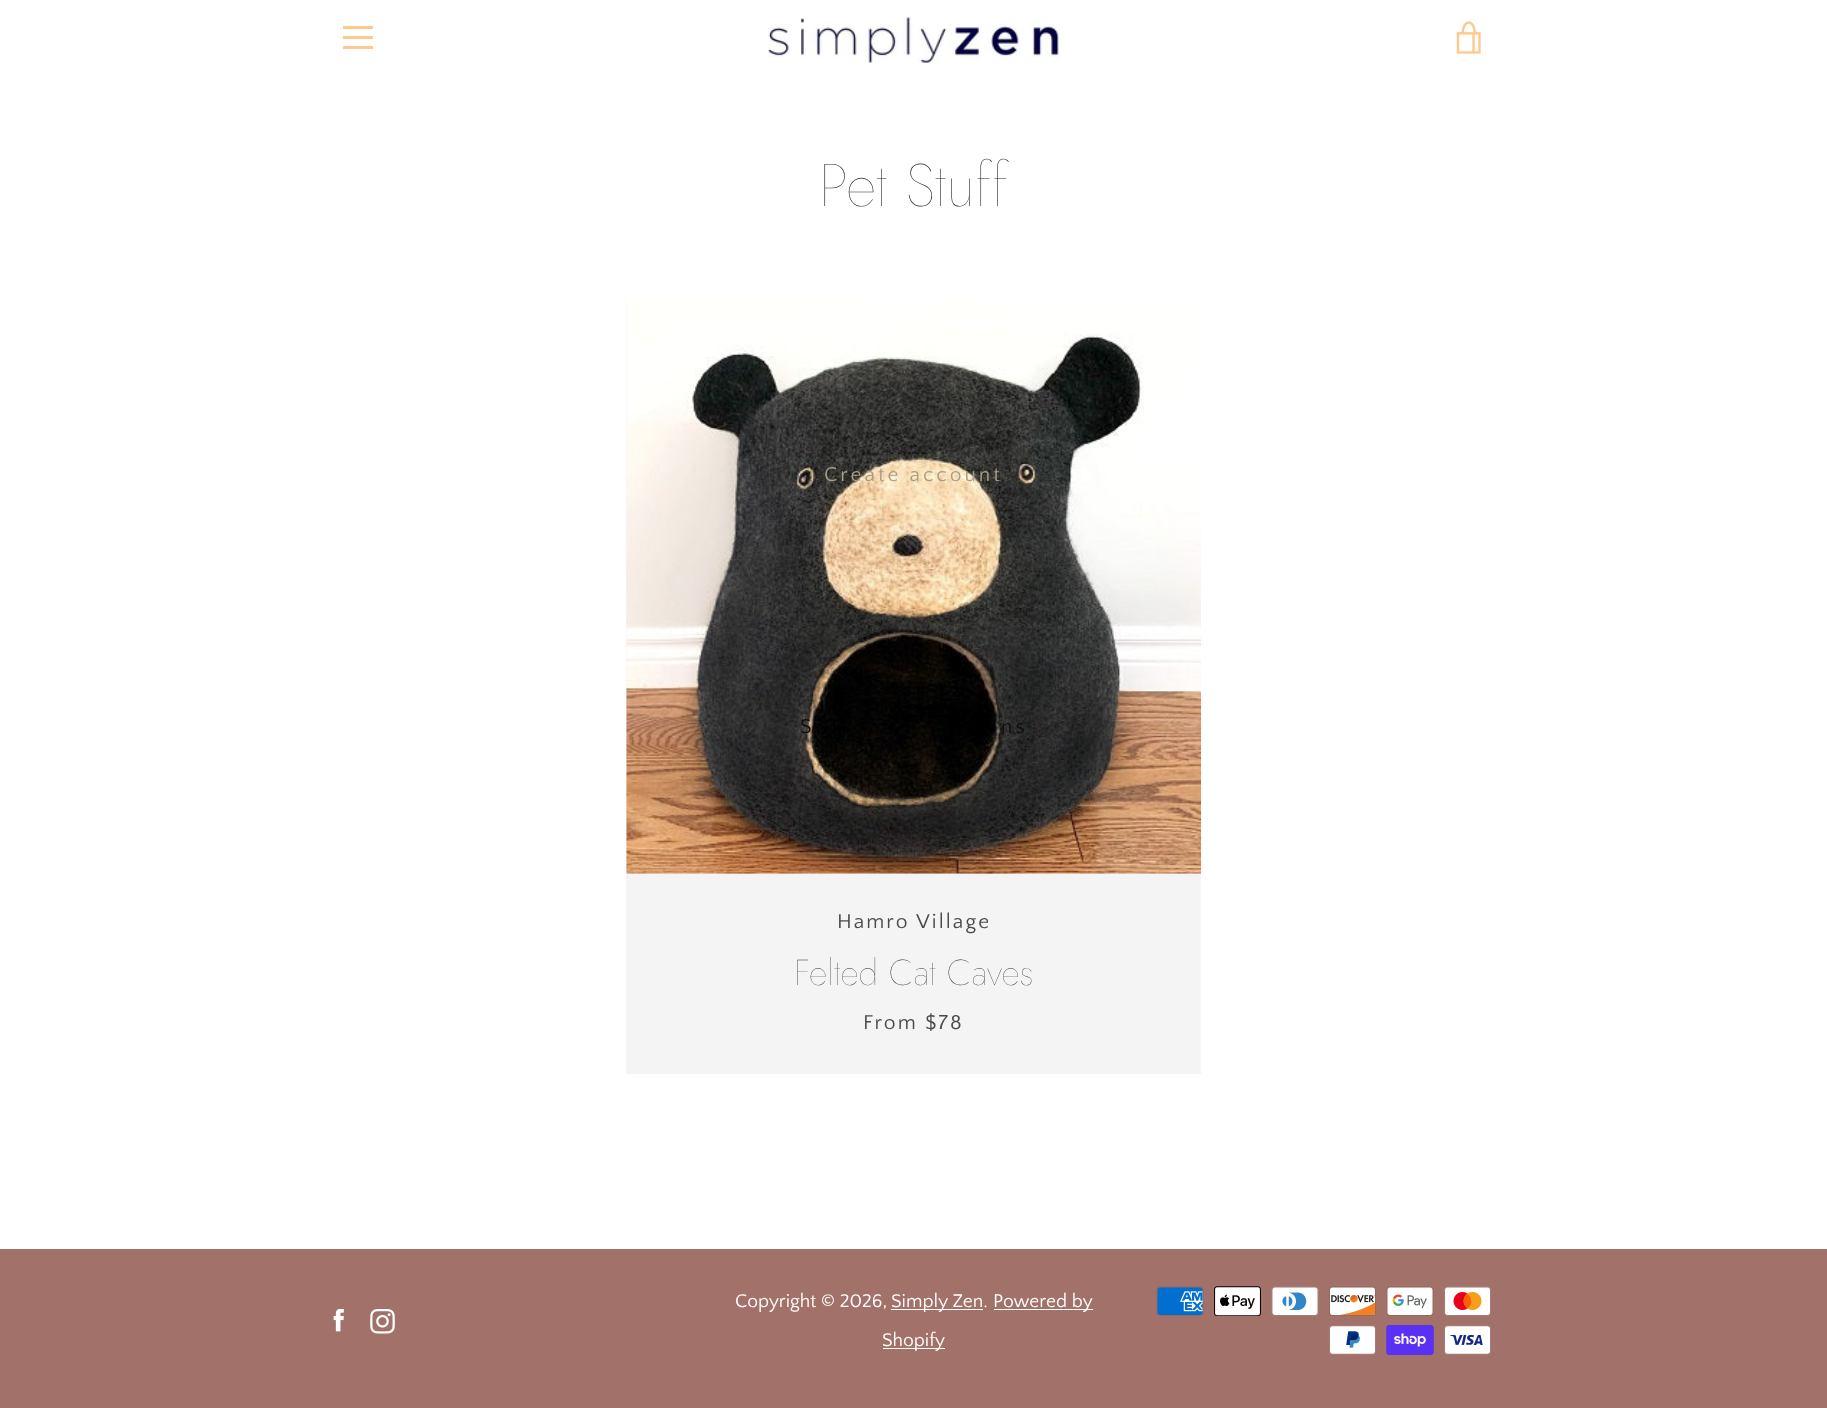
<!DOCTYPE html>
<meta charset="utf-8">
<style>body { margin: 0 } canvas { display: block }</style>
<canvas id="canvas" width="1827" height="1408"></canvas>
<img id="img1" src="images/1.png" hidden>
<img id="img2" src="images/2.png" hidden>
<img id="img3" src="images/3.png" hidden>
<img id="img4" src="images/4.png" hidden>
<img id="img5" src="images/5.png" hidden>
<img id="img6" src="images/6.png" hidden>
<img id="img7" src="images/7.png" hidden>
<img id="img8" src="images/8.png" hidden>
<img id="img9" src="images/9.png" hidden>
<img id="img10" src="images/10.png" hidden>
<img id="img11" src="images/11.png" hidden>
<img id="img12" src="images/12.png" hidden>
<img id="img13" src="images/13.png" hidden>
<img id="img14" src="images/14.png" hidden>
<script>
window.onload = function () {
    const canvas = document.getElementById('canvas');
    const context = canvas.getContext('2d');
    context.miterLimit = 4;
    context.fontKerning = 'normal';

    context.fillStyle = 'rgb(255, 255, 255)';
    context.fillRect(0, 0, 1827, 1408);
    context.fillStyle = 'rgb(243, 244, 243)';
    context.fillRect(626, 299, 575, 775);
    context.drawImage(document.getElementById('img1'), 626, 299, 576, 575);
    context.fillStyle = 'rgb(162, 114, 106)';
    context.fillRect(0, 1249, 1827, 159);
    context.drawImage(document.getElementById('img2'), 333, 1309, 11, 23);
    context.drawImage(document.getElementById('img3'), 370, 1309, 25, 25);
    context.fillStyle = 'rgb(255, 255, 255)';
    context.fillRect(891, 1309, 92, 1);
    context.fillRect(994, 1309, 99, 1);
    context.fillRect(883, 1348, 62, 1);
    context.drawImage(document.getElementById('img4'), 1156, 1286, 48, 30);
    context.drawImage(document.getElementById('img5'), 1214, 1286, 47, 30);
    context.drawImage(document.getElementById('img6'), 1271, 1286, 48, 30);
    context.drawImage(document.getElementById('img7'), 1329, 1286, 47, 30);
    context.drawImage(document.getElementById('img8'), 1386, 1286, 48, 30);
    context.drawImage(document.getElementById('img9'), 1444, 1286, 47, 30);
    context.drawImage(document.getElementById('img10'), 1329, 1325, 47, 30);
    context.drawImage(document.getElementById('img11'), 1386, 1325, 48, 30);
    context.drawImage(document.getElementById('img12'), 1444, 1325, 47, 30);
    context.drawImage(document.getElementById('img13'), 767, 17, 294, 46);
    context.drawImage(document.getElementById('img14'), 1456, 21, 25, 33);
    context.fillStyle = 'rgb(255, 200, 140)';
    context.fillRect(343, 26, 30, 3);
    context.fillRect(343, 36, 30, 3);
    context.fillRect(343, 46, 30, 3);
    context.font = '100 60px Jost';
    context.fillStyle = 'rgb(36, 36, 36)';
    context.fillText('Pet Stuff', 819, 206);
    context.letterSpacing = '2.1px';
    context.font = '21px Quattrocento Sans';
    context.fillStyle = 'rgb(74, 74, 74)';
    context.fillText('Hamro Village', 837, 928);
    context.letterSpacing = '0px';
    context.font = '100 36px Jost';
    context.fillStyle = 'rgb(36, 36, 36)';
    context.fillText('Felted Cat Caves', 794, 985);
    context.letterSpacing = '2.1px';
    context.font = '21px Quattrocento Sans';
    context.fillStyle = 'rgb(74, 74, 74)';
    context.fillText('From $78', 863, 1029);
    context.letterSpacing = '0px';
    context.font = '19.25px Quattrocento Sans';
    context.fillStyle = 'rgb(255, 255, 255)';
    context.fillText('Copyright © 2026,', 735, 1307);
    context.fillText('Simply Zen.', 891, 1307);
    context.fillText('Powered by', 993, 1307);
    context.fillText('Shopify', 882, 1346);
    context.letterSpacing = '3px';
    context.font = '21px Quattrocento Sans';
    context.fillStyle = 'rgb(170, 157, 133)';
    context.fillText('Create account', 824, 481);
    context.fillStyle = 'rgb(15, 14, 12)';
    context.fillText('S', 800, 733);
    context.fillText('ns', 1001, 733);
};
</script>
